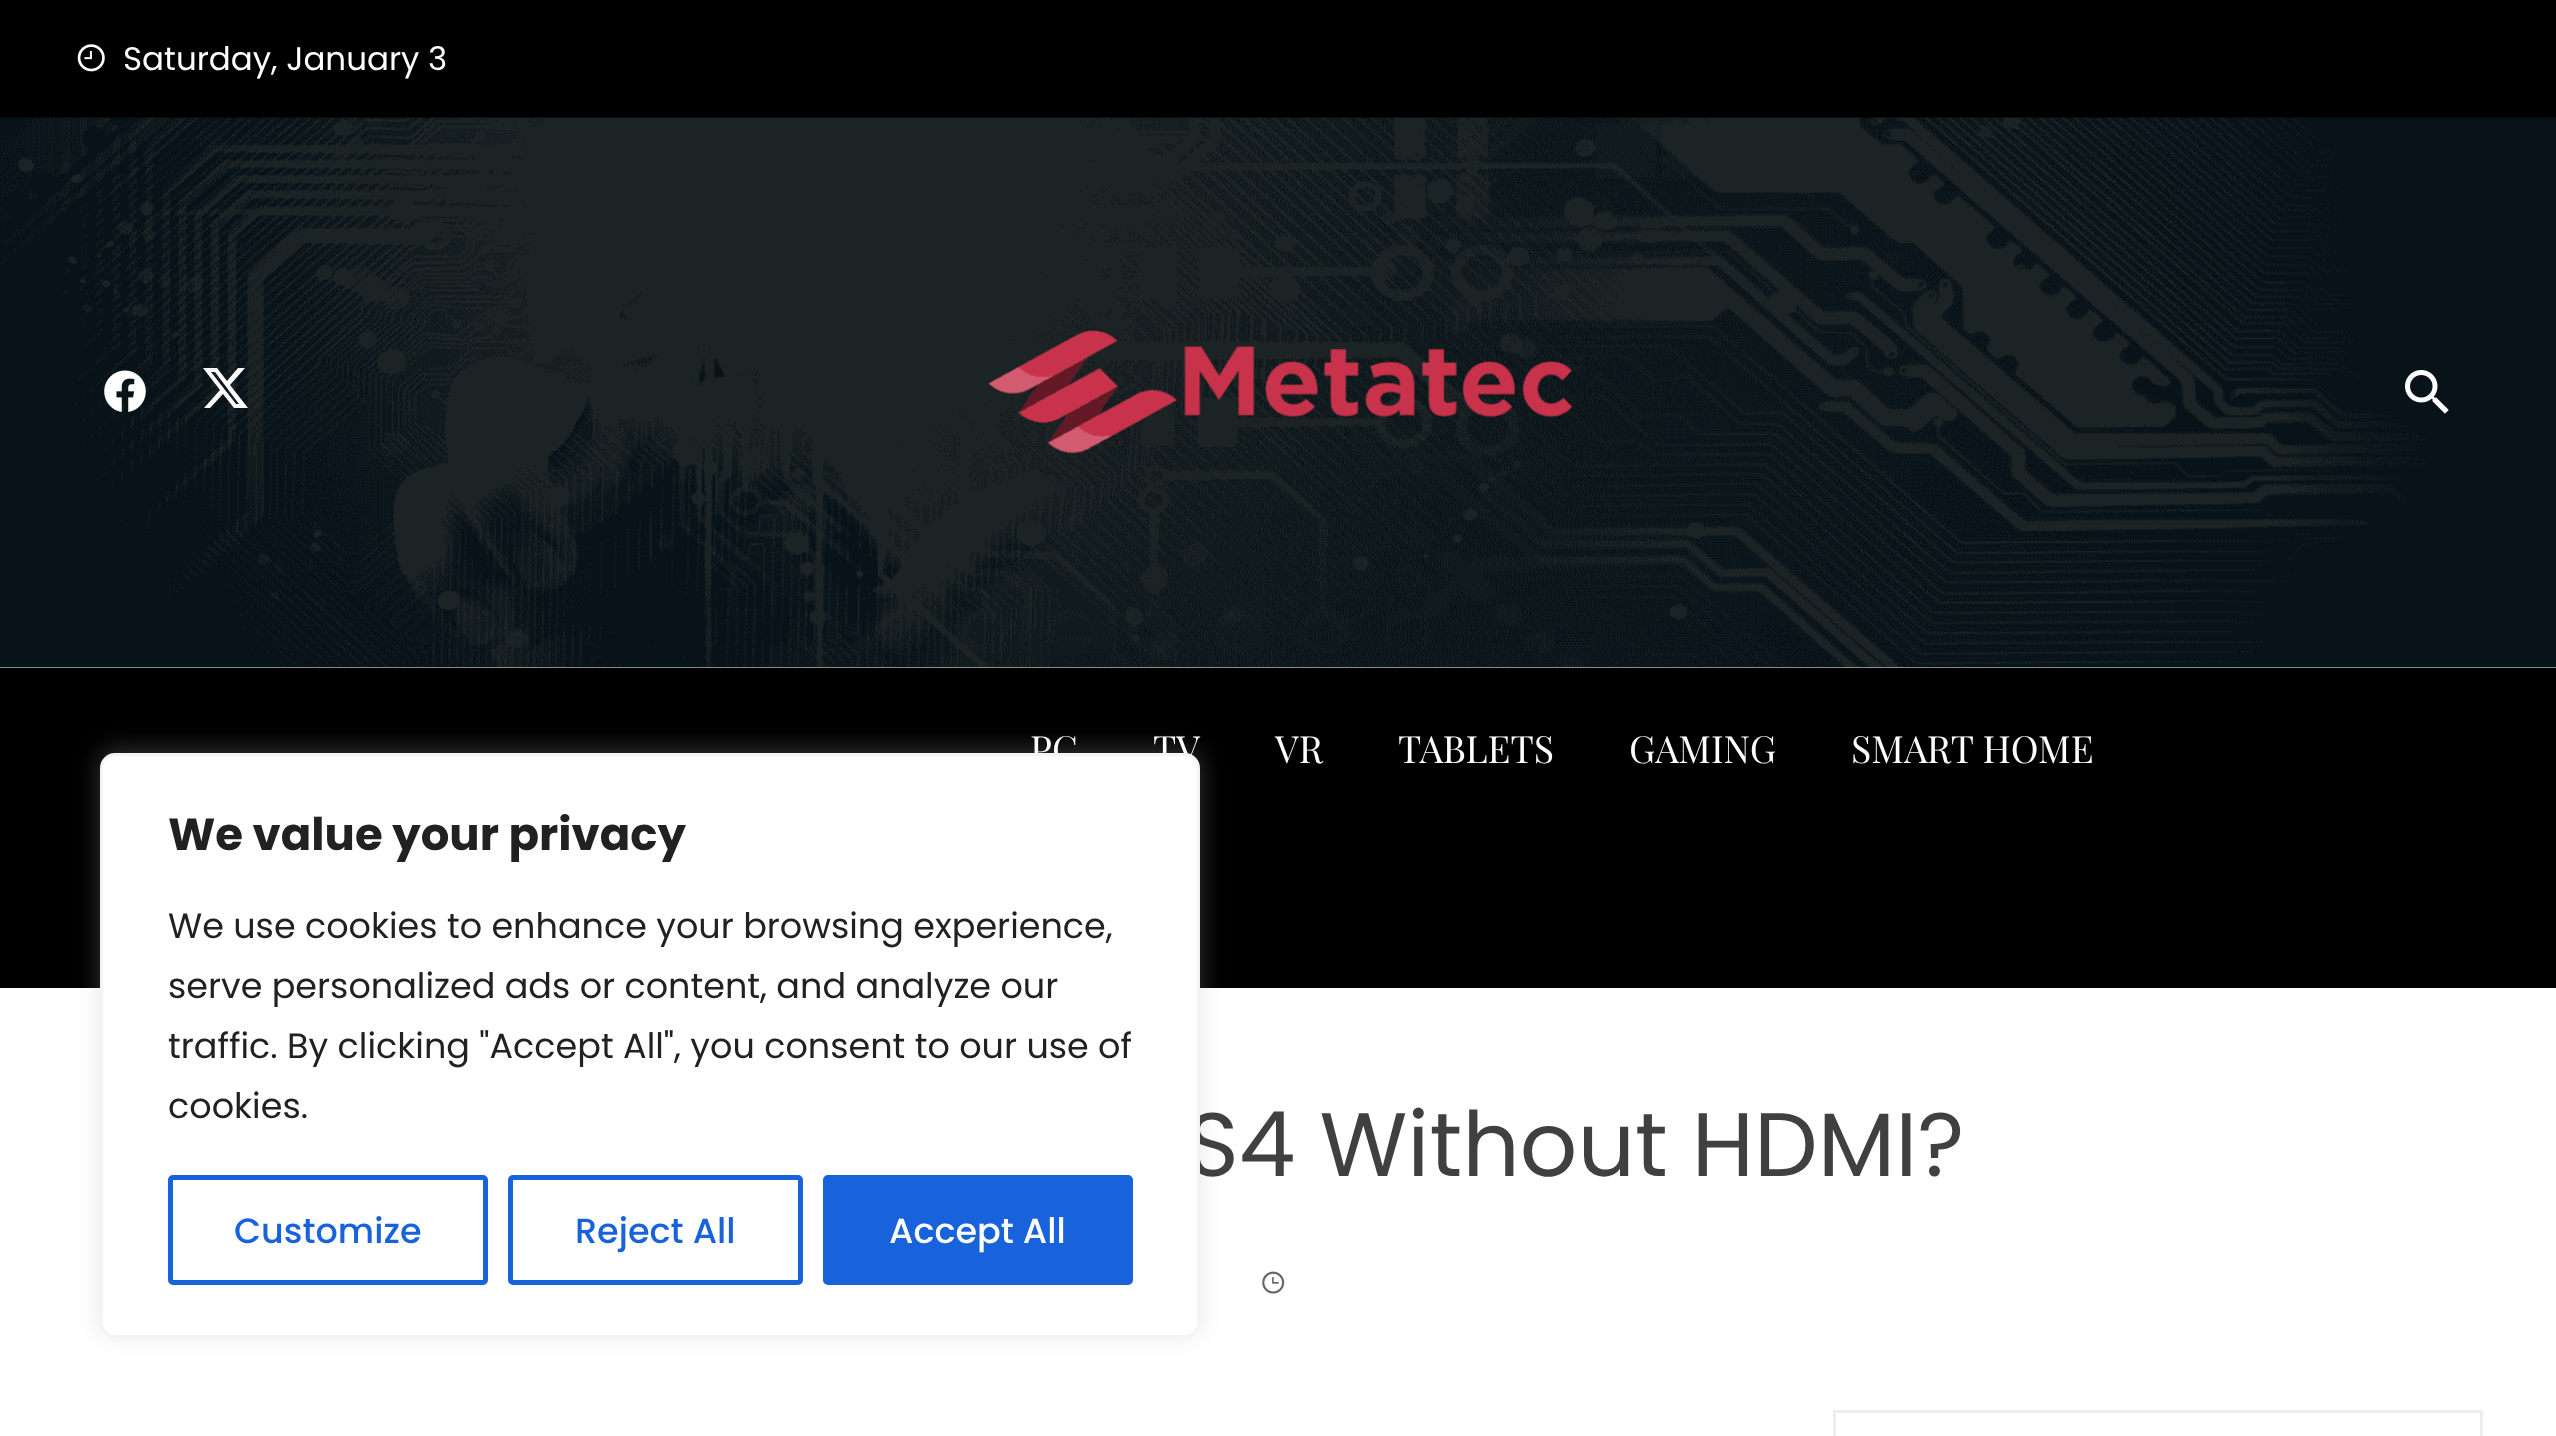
<!DOCTYPE html>
<meta charset="utf-8">
<style>body { margin: 0 } canvas { display: block }</style>
<canvas id="canvas" width="2556" height="1436"></canvas>
<img id="img1" src="images/1.png" hidden>
<img id="img2" src="images/2.png" hidden>
<img id="img3" src="images/3.png" hidden>
<img id="img4" src="images/4.png" hidden>
<img id="img5" src="images/5.png" hidden>
<img id="img6" src="images/6.png" hidden>
<script>
window.onload = function () {
    const canvas = document.getElementById('canvas');
    const context = canvas.getContext('2d');
    context.miterLimit = 4;
    context.fontKerning = 'normal';

    context.fillStyle = 'rgb(255, 255, 255)';
    context.fillRect(0, 0, 2556, 1436);
    context.fillStyle = 'rgb(0, 0, 0)';
    context.fillRect(0, 0, 2556, 118);
    context.drawImage(document.getElementById('img1'), 77, 44, 28, 28);
    context.drawImage(document.getElementById('img2'), 0, 117, 2556, 551);
    context.drawImage(document.getElementById('img3'), 104, 370, 42, 42);
    context.fillStyle = 'rgb(255, 255, 255)';
    context.beginPath();
    context.moveTo(238, 368);
    context.lineTo(245, 368);
    context.lineTo(230, 385);
    context.lineTo(248, 408);
    context.lineTo(234, 408);
    context.lineTo(223, 394);
    context.lineTo(210, 408);
    context.lineTo(204, 408);
    context.lineTo(220, 390);
    context.lineTo(203, 368);
    context.lineTo(217, 368);
    context.lineTo(227, 381);
    context.closePath();
    context.moveTo(236, 404);
    context.lineTo(239, 404);
    context.lineTo(215, 372);
    context.lineTo(211, 372);
    context.closePath();
    context.fill();
    context.drawImage(document.getElementById('img4'), 988, 330, 585, 124);
    context.drawImage(document.getElementById('img5'), 2405, 370, 44, 44);
    context.fillStyle = 'rgb(0, 0, 0)';
    context.fillRect(0, 668, 2556, 320);
    context.drawImage(document.getElementById('img6'), 1262, 1271, 23, 23);
    context.strokeStyle = 'rgb(238, 238, 238)';
    context.lineWidth = 3;
    context.strokeRect(1834.5, 1411.5, 647, 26);
    context.fillStyle = 'rgba(172, 171, 171, 0.3)';
    context.filter = 'blur(12.5px)';
    context.beginPath();
    context.roundRect(100, 750, 1100, 585, 15);
    context.fill();
    context.filter = 'none';
    context.font = '32.5px Poppins';
    context.fillStyle = 'rgb(255, 255, 255)';
    context.fillText('Saturday, January 3', 123, 70);
    context.font = '37.5px Playfair Display';
    context.fillText('PC', 1030, 763);
    context.fillText('TV', 1153, 763);
    context.fillText('VR', 1275, 763);
    context.fillText('TABLETS', 1398, 763);
    context.fillText('GAMING', 1629, 763);
    context.fillText('SMART HOME', 1851, 763);
    context.font = '90px Poppins';
    context.fillStyle = 'rgb(64, 64, 64)';
    context.fillText('S4 Without HDMI?', 1186, 1176);
    context.fillStyle = 'rgb(255, 255, 255)';
    context.beginPath();
    context.roundRect(101.5, 754.5, 1097, 582, 13.5);
    context.fill();
    context.strokeStyle = 'rgb(244, 244, 244)';
    context.stroke();
    context.font = 'bold 45px Poppins';
    context.fillStyle = 'rgb(33, 33, 33)';
    context.fillText('We value your privacy', 168, 850);
    context.font = '35px Poppins';
    context.fillText('We use cookies to enhance your browsing experience,', 168, 938);
    context.fillText('serve personalized ads or content, and analyze our', 168, 998);
    context.fillText('traffic. By clicking "Accept All", you consent to our use of', 168, 1058);
    context.fillText('cookies.', 168, 1118);
    context.beginPath();
    context.roundRect(170.5, 1177.5, 315, 105, 2.5);
    context.strokeStyle = 'rgb(24, 99, 220)';
    context.lineWidth = 5;
    context.stroke();
    context.font = '500 35px Poppins';
    context.fillStyle = 'rgb(24, 99, 220)';
    context.fillText('Customize', 234, 1243);
    context.beginPath();
    context.roundRect(510.5, 1177.5, 290, 105, 2.5);
    context.stroke();
    context.fillText('Reject All', 575, 1243);
    context.beginPath();
    context.roundRect(825.5, 1177.5, 305, 105, 2.5);
    context.fill();
    context.stroke();
    context.fillStyle = 'rgb(255, 255, 255)';
    context.fillText('Accept All', 889, 1243);
};
</script>
